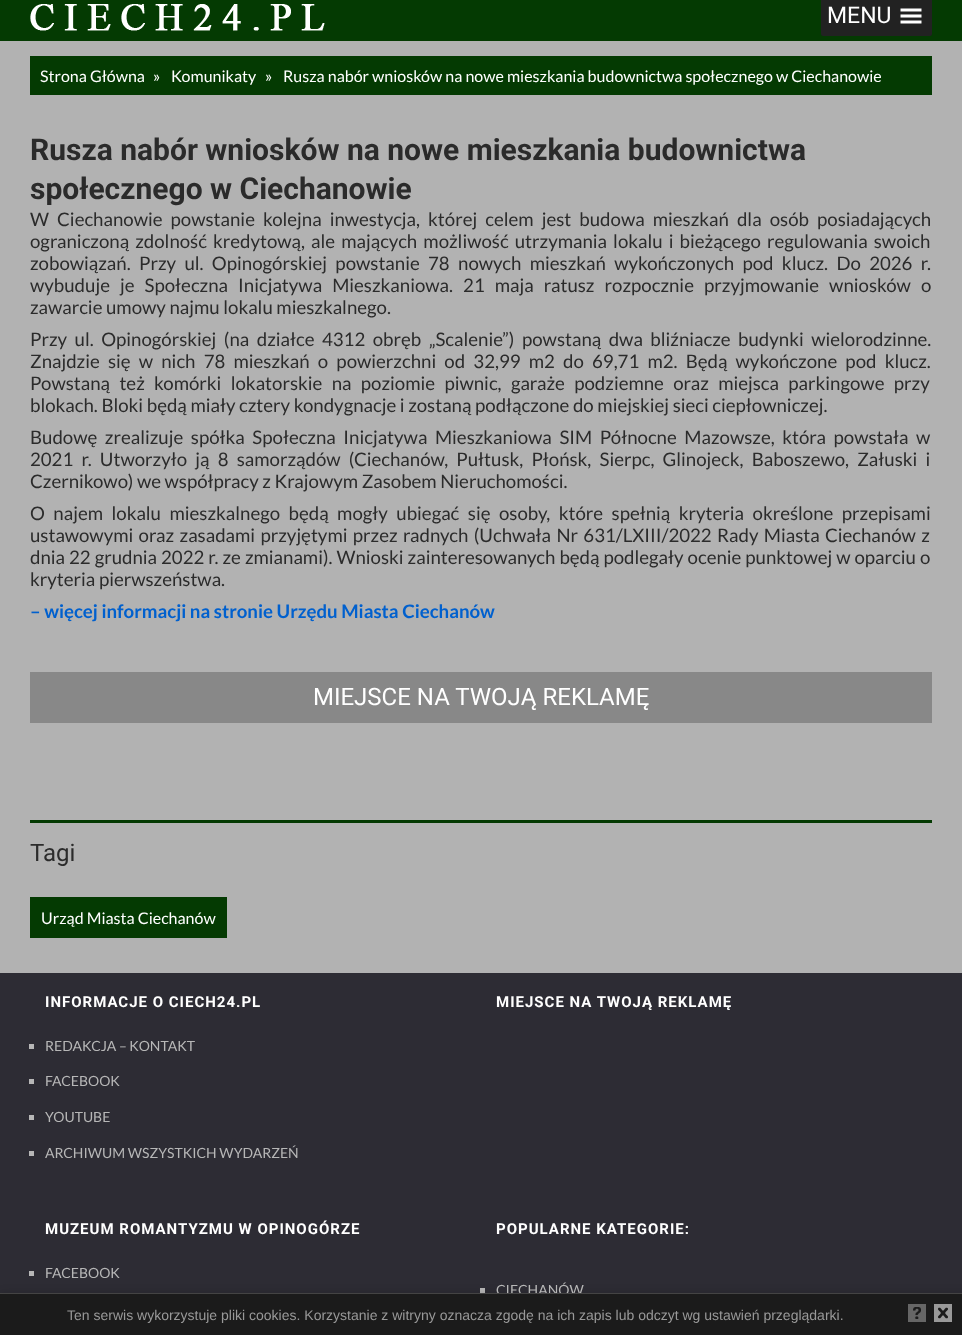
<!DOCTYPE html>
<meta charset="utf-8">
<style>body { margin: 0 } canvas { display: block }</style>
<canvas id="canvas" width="962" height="1335"></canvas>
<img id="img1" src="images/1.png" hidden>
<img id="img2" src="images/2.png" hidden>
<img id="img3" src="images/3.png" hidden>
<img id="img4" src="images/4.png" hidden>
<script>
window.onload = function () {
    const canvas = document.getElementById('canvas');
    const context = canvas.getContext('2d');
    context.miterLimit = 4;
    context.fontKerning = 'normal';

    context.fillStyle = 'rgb(45, 44, 52)';
    context.fillRect(0, 0, 962, 1335);
    context.fillStyle = 'rgb(178, 178, 178)';
    context.fillRect(0, 41, 962, 932);
    context.fillStyle = 'rgb(4, 58, 2)';
    context.fillRect(0, 0, 962, 41);
    context.drawImage(document.getElementById('img1'), 30, 4, 295, 27);
    context.fillStyle = 'rgb(34, 34, 34)';
    context.beginPath();
    context.roundRect(821, 0, 111, 36, [0, 0, 2, 2]);
    context.fill();
    context.drawImage(document.getElementById('img2'), 900, 8, 22, 16);
    context.fillStyle = 'rgb(4, 58, 2)';
    context.fillRect(30, 56, 902, 39);
    context.fillStyle = 'rgb(136, 136, 136)';
    context.fillRect(30, 672, 902, 51);
    context.fillStyle = 'rgb(4, 58, 2)';
    context.fillRect(30, 820, 902, 3);
    context.fillRect(30, 897, 197, 41);
    context.fillStyle = 'rgb(183, 183, 183)';
    context.fillRect(29, 1044, 5, 5);
    context.fillRect(29, 1079, 5, 5);
    context.fillRect(29, 1115, 5, 5);
    context.fillRect(29, 1151, 5, 5);
    context.fillRect(29, 1271, 5, 5);
    context.fillRect(480, 1288, 5, 5);
    context.fillStyle = 'rgba(0, 0, 0, 0.15)';
    context.filter = 'blur(4px)';
    context.beginPath();
    context.rect(0, 1293, 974, 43);
    context.fill();
    context.filter = 'none';
    context.font = '23px Roboto';
    context.fillStyle = 'rgb(255, 255, 255)';
    context.fillText('MENU', 827, 23);
    context.font = '16px Lato';
    context.fillText('Strona Główna', 40, 82);
    context.fillText('»', 153, 82);
    context.fillText('Komunikaty', 171, 82);
    context.fillText('»', 265, 82);
    context.fillText('Rusza nabór wniosków na nowe mieszkania budownictwa społecznego w Ciechanowie', 283, 82);
    context.font = 'bold 30px Roboto';
    context.fillStyle = 'rgb(43, 43, 43)';
    context.fillText('Rusza nabór wniosków na nowe mieszkania budownictwa', 30, 160);
    context.fillText('społecznego w Ciechanowie', 30, 199);
    context.wordSpacing = '4.5px';
    context.font = '18.65px Lato';
    context.fillText('W Ciechanowie powstanie kolejna inwestycja, której celem jest budowa mieszkań dla osób posiadających', 30, 226);
    context.wordSpacing = '2.5px';
    context.fillText('ograniczoną zdolność kredytową, ale mających możliwość utrzymania lokalu i bieżącego regulowania swoich', 30, 248);
    context.wordSpacing = '4.75px';
    context.fillText('zobowiązań. Przy ul. Opinogórskiej powstanie 78 nowych mieszkań wykończonych pod klucz. Do 2026 r.', 30, 270);
    context.wordSpacing = '6.5px';
    context.fillText('wybuduje je Społeczna Inicjatywa Mieszkaniowa. 21 maja ratusz rozpocznie przyjmowanie wniosków o', 30, 292);
    context.wordSpacing = '0px';
    context.fillText('zawarcie umowy najmu lokalu mieszkalnego.', 30, 314);
    context.wordSpacing = '3.9px';
    context.fillText('Przy ul. Opinogórskiej (na działce 4312 obręb „Scalenie”) powstaną dwa bliźniacze budynki wielorodzinne.', 30, 346);
    context.wordSpacing = '4.6px';
    context.fillText('Znajdzie się w nich 78 mieszkań o powierzchni od 32,99 m2 do 69,71 m2. Będą wykończone pod klucz.', 30, 368);
    context.wordSpacing = '5.75px';
    context.fillText('Powstaną też komórki lokatorskie na poziomie piwnic, garaże podziemne oraz miejsca parkingowe przy', 30, 390);
    context.wordSpacing = '0px';
    context.fillText('blokach. Bloki będą miały cztery kondygnacje i zostaną podłączone do miejskiej sieci ciepłowniczej.', 30, 412);
    context.wordSpacing = '4px';
    context.fillText('Budowę zrealizuje spółka Społeczna Inicjatywa Mieszkaniowa SIM Północne Mazowsze, która powstała w', 30, 444);
    context.wordSpacing = '4.6px';
    context.fillText('2021 r. Utworzyło ją 8 samorządów (Ciechanów, Pułtusk, Płońsk, Sierpc, Glinojeck, Baboszewo, Załuski i', 30, 466);
    context.wordSpacing = '0px';
    context.fillText('Czernikowo) we współpracy z Krajowym Zasobem Nieruchomości.', 30, 488);
    context.wordSpacing = '4.9px';
    context.fillText('O najem lokalu mieszkalnego będą mogły ubiegać się osoby, które spełnią kryteria określone przepisami', 30, 520);
    context.wordSpacing = '1.75px';
    context.fillText('ustawowymi oraz zasadami przyjętymi przez radnych (Uchwała Nr 631/LXIII/2022 Rady Miasta Ciechanów z', 30, 542);
    context.wordSpacing = '0.4px';
    context.fillText('dnia 22 grudnia 2022 r. ze zmianami). Wnioski zainteresowanych będą podlegały ocenie punktowej w oparciu o', 30, 564);
    context.wordSpacing = '0px';
    context.fillText('kryteria pierwszeństwa.', 30, 586);
    context.font = 'bold 18.65px Lato';
    context.fillStyle = 'rgb(0, 96, 206)';
    context.fillText('– więcej informacji na stronie Urzędu Miasta Ciechanów', 30, 618);
    context.font = '24px Roboto';
    context.fillStyle = 'rgb(255, 255, 255)';
    context.fillText('MIEJSCE NA TWOJĄ REKLAMĘ', 313, 705);
    context.fillStyle = 'rgb(43, 43, 43)';
    context.fillText('Tagi', 30, 861);
    context.font = '16px Lato';
    context.fillStyle = 'rgb(255, 255, 255)';
    context.fillText('Urząd Miasta Ciechanów', 41, 924);
    context.letterSpacing = '1px';
    context.font = 'bold 15px Roboto';
    context.fillText('INFORMACJE O CIECH24.PL', 45, 1007);
    context.letterSpacing = '0px';
    context.font = '14px Lato';
    context.fillStyle = 'rgb(183, 183, 183)';
    context.fillText('REDAKCJA – KONTAKT', 45, 1051);
    context.fillText('FACEBOOK', 45, 1086);
    context.fillText('YOUTUBE', 45, 1122);
    context.fillText('ARCHIWUM WSZYSTKICH WYDARZEŃ', 45, 1158);
    context.letterSpacing = '1px';
    context.font = 'bold 15px Roboto';
    context.fillStyle = 'rgb(255, 255, 255)';
    context.fillText('MIEJSCE NA TWOJĄ REKLAMĘ', 496, 1007);
    context.fillText('MUZEUM ROMANTYZMU W OPINOGÓRZE', 45, 1234);
    context.letterSpacing = '0px';
    context.font = '14px Lato';
    context.fillStyle = 'rgb(183, 183, 183)';
    context.fillText('FACEBOOK', 45, 1278);
    context.letterSpacing = '1px';
    context.font = 'bold 15px Roboto';
    context.fillStyle = 'rgb(255, 255, 255)';
    context.fillText('POPULARNE KATEGORIE:', 496, 1234);
    context.letterSpacing = '0px';
    context.font = '14px Lato';
    context.fillStyle = 'rgb(183, 183, 183)';
    context.fillText('CIECHANÓW', 496, 1295);
    context.fillStyle = 'rgb(27, 27, 27)';
    context.fillRect(0, 1294, 962, 41);
    context.fillStyle = 'rgb(68, 68, 68)';
    context.fillRect(0, 1293, 962, 1);
    context.font = '14px Liberation Sans';
    context.fillStyle = 'rgb(153, 153, 153)';
    context.fillText('Ten serwis wykorzystuje pliki cookies. Korzystanie z witryny oznacza zgodę na ich zapis lub odczyt wg ustawień przeglądarki.', 67, 1320);
    context.drawImage(document.getElementById('img3'), 908, 1304, 18, 18);
    context.drawImage(document.getElementById('img4'), 934, 1304, 18, 18);
};
</script>
